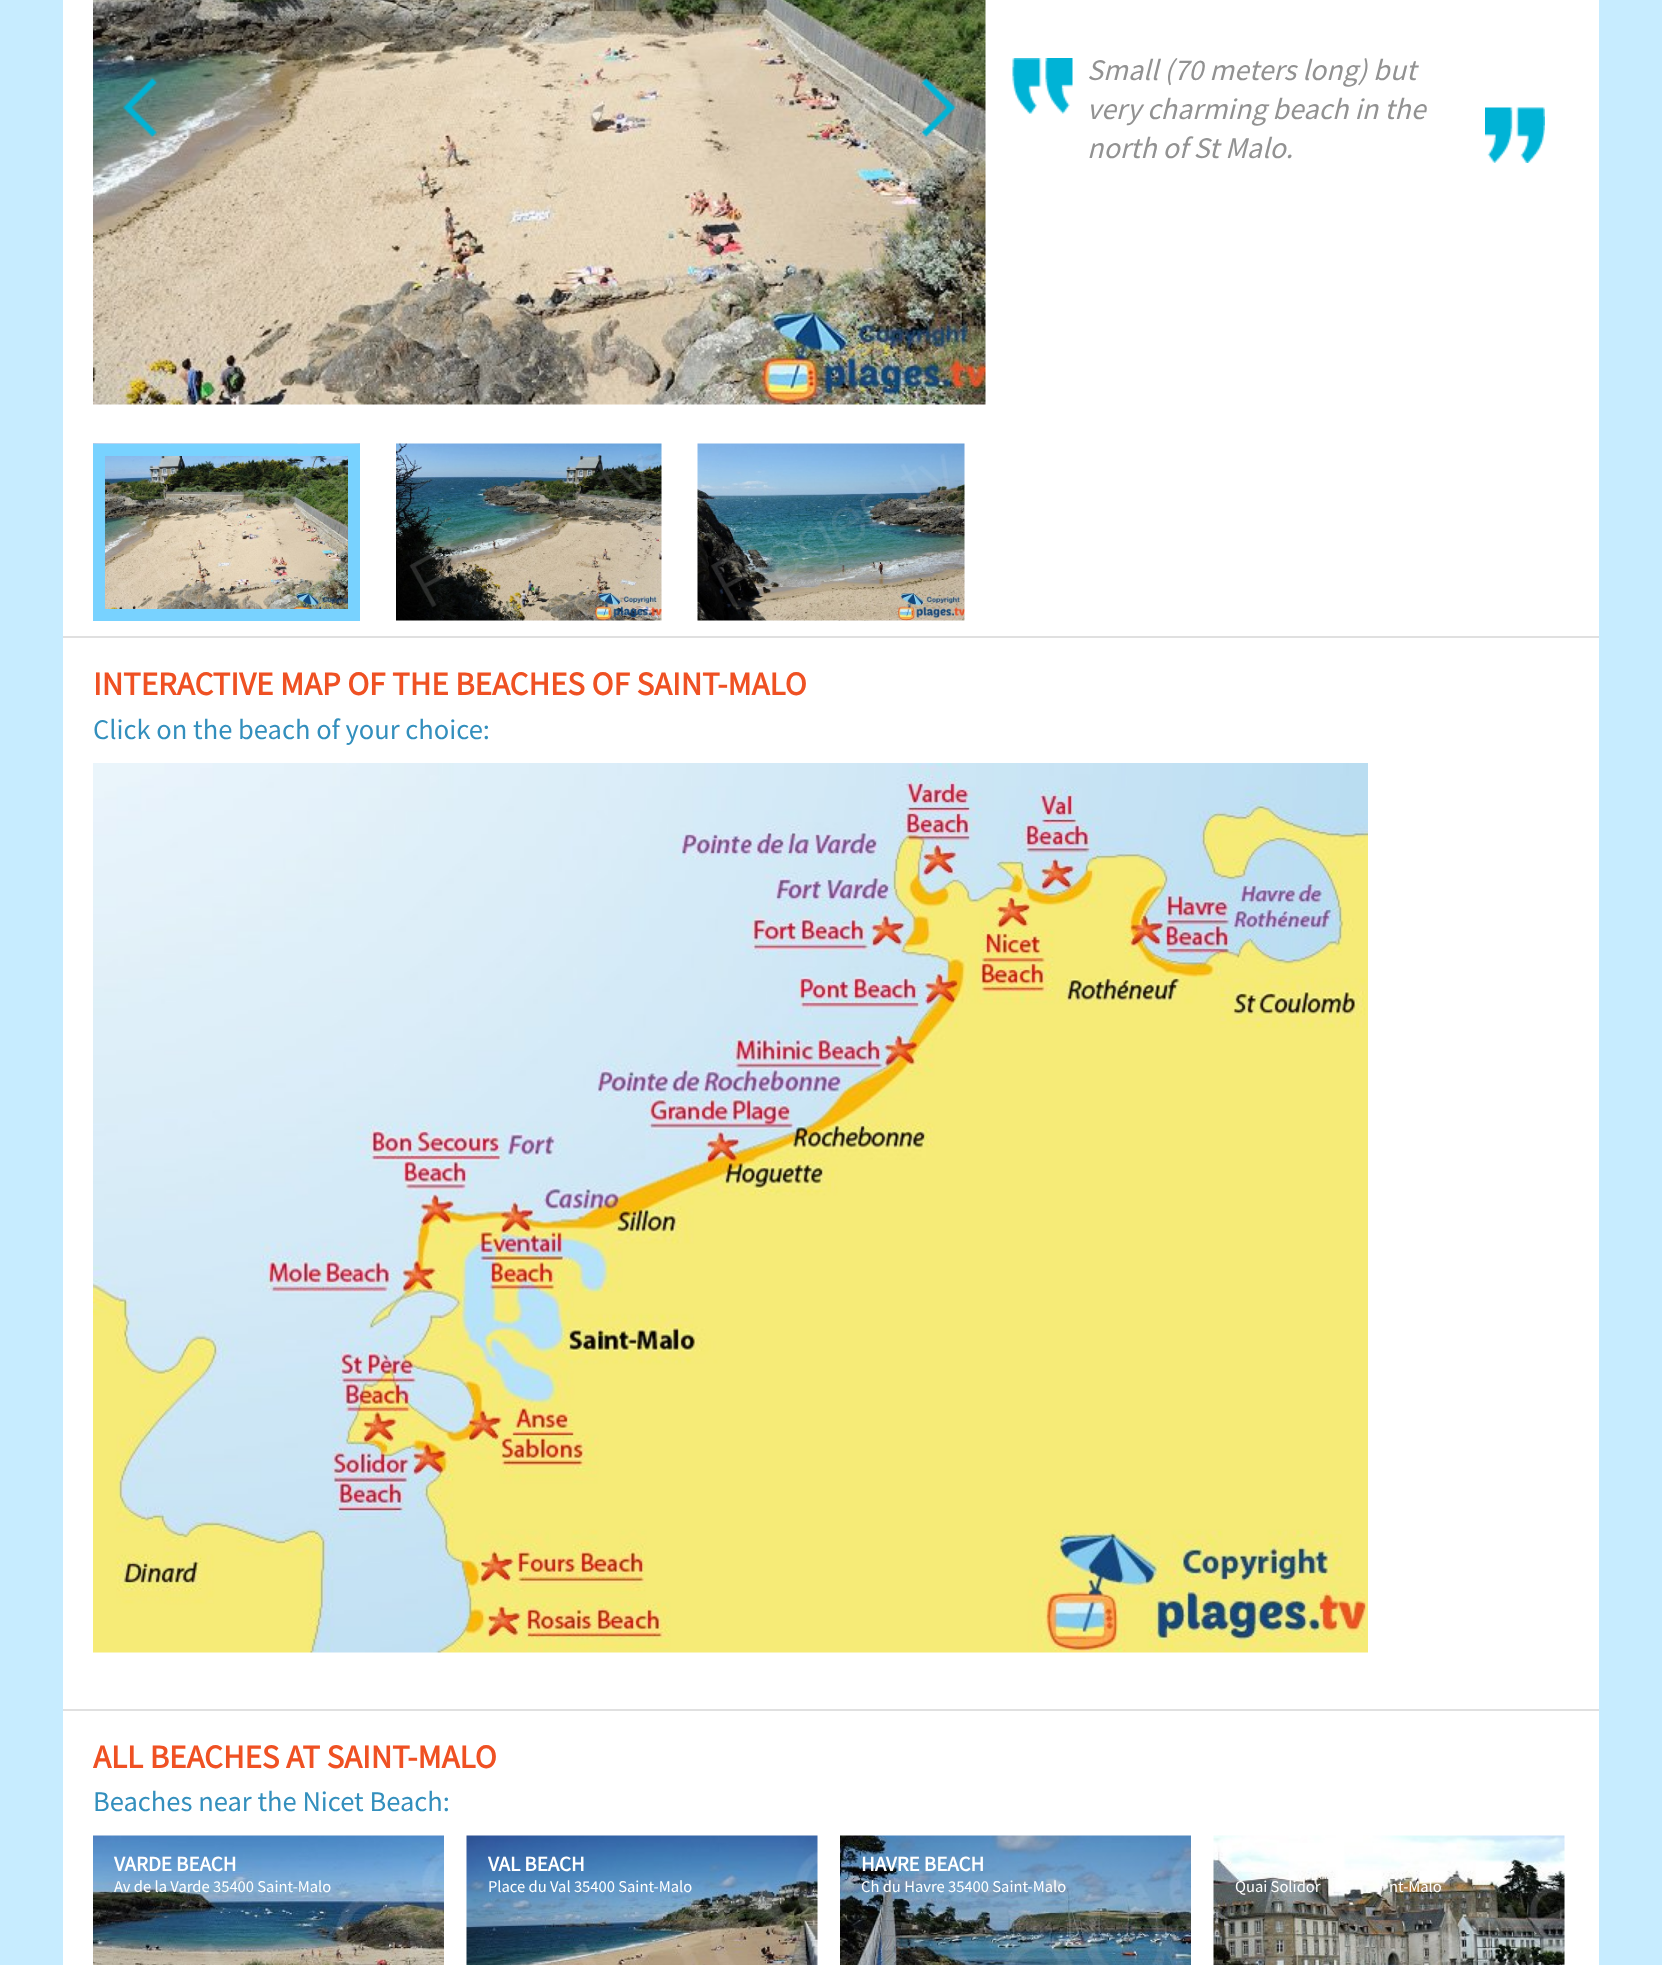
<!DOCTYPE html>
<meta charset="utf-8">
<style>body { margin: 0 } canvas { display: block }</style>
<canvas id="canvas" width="1662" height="1965"></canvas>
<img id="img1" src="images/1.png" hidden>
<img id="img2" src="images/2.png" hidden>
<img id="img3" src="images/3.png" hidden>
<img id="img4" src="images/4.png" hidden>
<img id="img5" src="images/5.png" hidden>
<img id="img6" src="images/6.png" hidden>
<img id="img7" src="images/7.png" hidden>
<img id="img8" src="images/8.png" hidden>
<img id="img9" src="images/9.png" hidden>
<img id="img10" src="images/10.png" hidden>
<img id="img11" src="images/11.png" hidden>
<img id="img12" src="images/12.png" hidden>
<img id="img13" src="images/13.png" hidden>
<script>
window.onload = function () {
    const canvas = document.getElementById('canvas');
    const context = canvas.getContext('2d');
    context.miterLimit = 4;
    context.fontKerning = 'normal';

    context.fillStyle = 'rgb(199, 236, 255)';
    context.fillRect(0, 0, 1662, 1965);
    context.fillStyle = 'rgb(255, 255, 255)';
    context.fillRect(63, 0, 1536, 1965);
    context.drawImage(document.getElementById('img1'), 93, 0, 893, 405);
    context.drawImage(document.getElementById('img2'), 123, 77, 35, 61);
    context.drawImage(document.getElementById('img3'), 921, 77, 35, 61);
    context.drawImage(document.getElementById('img4'), 1012, 58, 61, 56);
    context.drawImage(document.getElementById('img5'), 1485, 107, 60, 56);
    context.drawImage(document.getElementById('img6'), 93, 443, 267, 166);
    context.strokeStyle = 'rgb(120, 210, 255)';
    context.lineWidth = 12;
    context.strokeRect(99, 450, 255, 165);
    context.drawImage(document.getElementById('img7'), 396, 443, 266, 178);
    context.drawImage(document.getElementById('img8'), 697, 443, 268, 178);
    context.fillStyle = 'rgb(224, 224, 224)';
    context.fillRect(63, 636, 1536, 2);
    context.drawImage(document.getElementById('img9'), 93, 763, 1275, 890);
    context.fillRect(63, 1709, 1536, 2);
    context.drawImage(document.getElementById('img10'), 93, 1835, 351, 130);
    context.drawImage(document.getElementById('img11'), 466, 1835, 352, 130);
    context.drawImage(document.getElementById('img12'), 840, 1835, 351, 130);
    context.drawImage(document.getElementById('img13'), 1213, 1835, 352, 130);
    context.font = 'italic 30px Source Sans Pro';
    context.fillStyle = 'rgb(146, 146, 146)';
    context.fillText('Small (70 meters long) but', 1087, 80);
    context.fillText('very charming beach in the', 1087, 119);
    context.fillText('north of St Malo.', 1087, 158);
    context.font = 'bold 33px Source Sans Pro';
    context.fillStyle = 'rgb(239, 81, 35)';
    context.fillText('INTERACTIVE MAP OF THE BEACHES OF SAINT-MALO', 93, 695);
    context.font = '28.5px Source Sans Pro';
    context.fillStyle = 'rgb(51, 143, 189)';
    context.fillText('Click on the beach of your choice:', 93, 739);
    context.font = 'bold 33px Source Sans Pro';
    context.fillStyle = 'rgb(239, 81, 35)';
    context.fillText('ALL BEACHES AT SAINT-MALO', 93, 1768);
    context.font = '28.5px Source Sans Pro';
    context.fillStyle = 'rgb(51, 143, 189)';
    context.fillText('Beaches near the Nicet Beach:', 93, 1811);
    context.font = 'bold 21px Source Sans Pro';
    context.fillStyle = 'rgb(255, 255, 255)';
    context.fillText('VARDE BEACH', 114, 1871);
    context.font = '16.5px Source Sans Pro';
    context.fillText('Av de la Varde 35400 Saint-Malo', 114, 1892);
    context.font = 'bold 21px Source Sans Pro';
    context.fillText('VAL BEACH', 488, 1871);
    context.font = '16.5px Source Sans Pro';
    context.fillText('Place du Val 35400 Saint-Malo', 488, 1892);
    context.font = 'bold 21px Source Sans Pro';
    context.fillText('HAVRE BEACH', 861, 1871);
    context.font = '16.5px Source Sans Pro';
    context.fillText('Ch du Havre 35400 Saint-Malo', 861, 1892);
    context.fillText('Quai Solidor', 1235, 1892);
    context.fillText('nt-Malo', 1389, 1892);
};
</script>
